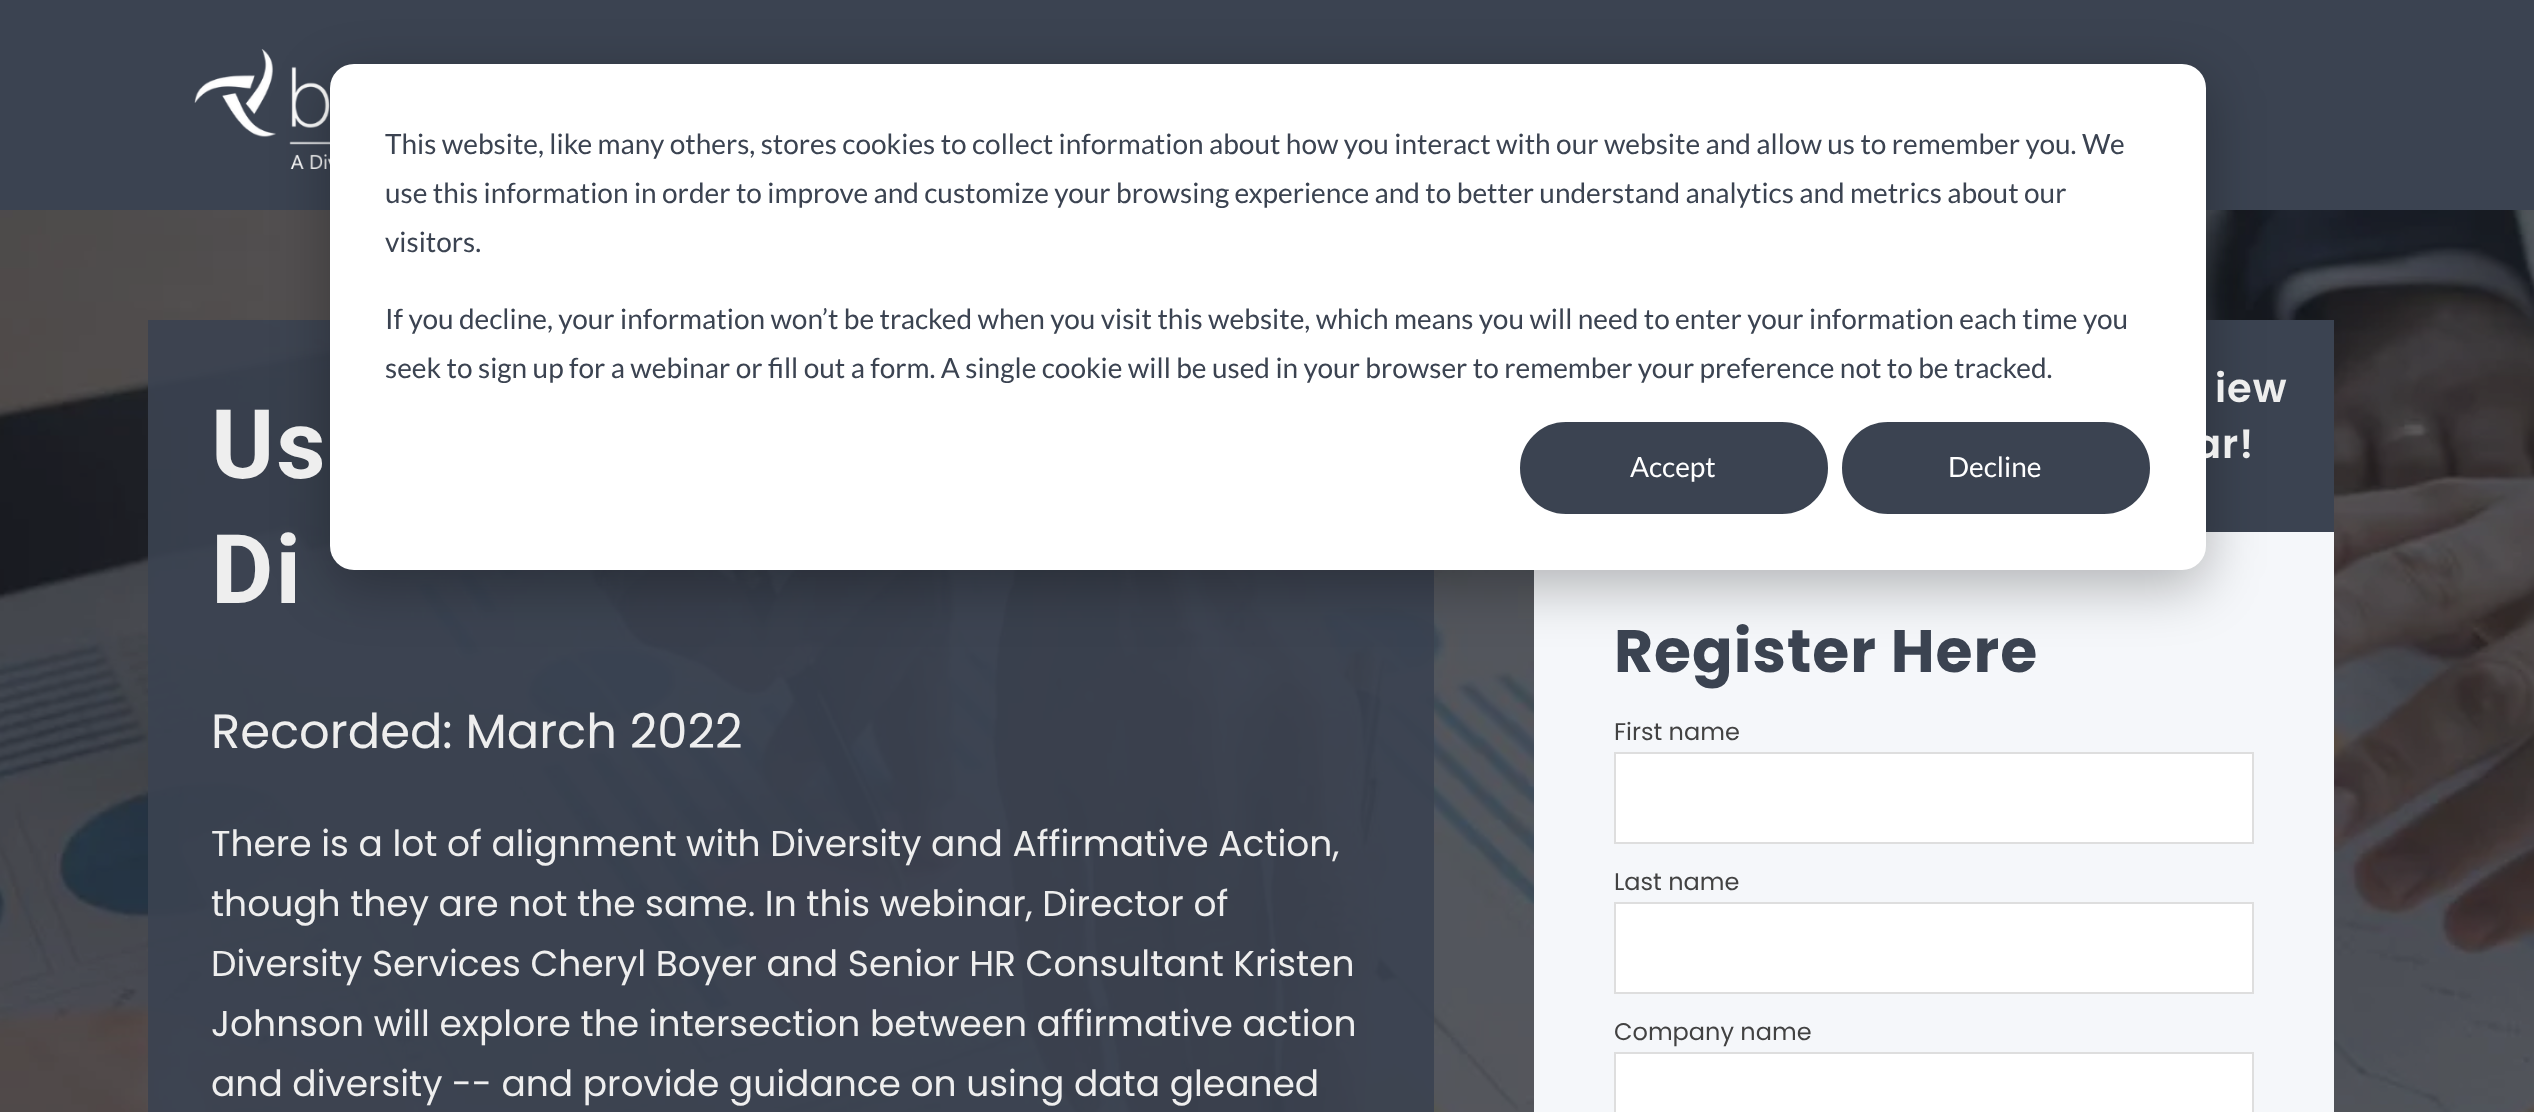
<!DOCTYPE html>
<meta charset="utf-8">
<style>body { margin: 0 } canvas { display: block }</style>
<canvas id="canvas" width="2534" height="1112"></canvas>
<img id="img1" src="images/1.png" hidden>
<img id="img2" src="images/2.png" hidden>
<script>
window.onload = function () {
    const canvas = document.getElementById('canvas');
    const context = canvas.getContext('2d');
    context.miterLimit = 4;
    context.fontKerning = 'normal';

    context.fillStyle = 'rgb(255, 255, 255)';
    context.fillRect(0, 0, 2534, 1112);
    context.fillStyle = 'rgb(59, 67, 81)';
    context.fillRect(0, 0, 2534, 210);
    context.drawImage(document.getElementById('img1'), 194, 49, 136, 120);
    context.drawImage(document.getElementById('img2'), 0, 210, 2534, 902);
    context.fillStyle = 'rgba(59, 67, 81, 0.9)';
    context.fillRect(148, 320, 1286, 792);
    context.fillStyle = 'rgb(59, 67, 81)';
    context.fillRect(2206, 320, 128, 212);
    context.fillStyle = 'rgb(245, 247, 250)';
    context.fillRect(1534, 532, 800, 580);
    context.fillStyle = 'rgba(0, 0, 0, 0.28)';
    context.filter = 'blur(28px)';
    context.beginPath();
    context.roundRect(330, 80, 1876, 506, 24);
    context.fill();
    context.filter = 'none';
    context.fillStyle = 'rgb(255, 255, 255)';
    context.beginPath();
    context.rect(1615, 753, 638, 90);
    context.fill();
    context.strokeStyle = 'rgb(222, 222, 222)';
    context.lineWidth = 2;
    context.stroke();
    context.beginPath();
    context.rect(1615, 903, 638, 90);
    context.fill();
    context.stroke();
    context.beginPath();
    context.rect(1615, 1053, 638, 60);
    context.fill();
    context.stroke();
    context.letterSpacing = '2px';
    context.font = 'bold 96px Roboto';
    context.fillStyle = 'rgb(238, 238, 238)';
    context.fillText('Us', 211, 478);
    context.fillText('Di', 211, 603);
    context.letterSpacing = '0px';
    context.font = '48px Poppins';
    context.fillText('Recorded: March 2022', 211, 748);
    context.font = '36px Poppins';
    context.fillText('There is a lot of alignment with Diversity and Affirmative Action,', 211, 856);
    context.fillText('though they are not the same. In this webinar, Director of', 211, 916);
    context.fillText('Diversity Services Cheryl Boyer and Senior HR Consultant Kristen', 211, 976);
    context.fillText('Johnson will explore the intersection between affirmative action', 211, 1036);
    context.fillText('and diversity -- and provide guidance on using data gleaned', 211, 1096);
    context.letterSpacing = '1px';
    context.font = '600 40px Poppins';
    context.fillText('iew', 2215, 402);
    context.fillText('ar!', 2194, 458);
    context.fillStyle = 'rgb(255, 255, 255)';
    context.beginPath();
    context.roundRect(330, 64, 1876, 506, 24);
    context.fill();
    context.fillStyle = 'rgb(59, 67, 81)';
    context.beginPath();
    context.roundRect(1843, 423, 306, 90, 45);
    context.fill();
    context.strokeStyle = 'rgb(59, 67, 81)';
    context.stroke();
    context.letterSpacing = '0px';
    context.font = '28px Lato';
    context.fillStyle = 'rgb(255, 255, 255)';
    context.fillText('Decline', 1948, 477);
    context.fillStyle = 'rgb(59, 67, 81)';
    context.beginPath();
    context.roundRect(1521, 423, 306, 90, 45);
    context.fill();
    context.stroke();
    context.fillStyle = 'rgb(255, 255, 255)';
    context.fillText('Accept', 1630, 477);
    context.fillStyle = 'rgb(59, 67, 81)';
    context.fillText('seek to sign up for a webinar or fill out a form. A single cookie will be used in your browser to remember your preference not to be tracked.', 385, 378);
    context.fillText('If you decline, your information won’t be tracked when you visit this website, which means you will need to enter your information each time you', 385, 329);
    context.fillText('visitors.', 385, 252);
    context.fillText('use this information in order to improve and customize your browsing experience and to better understand analytics and metrics about our', 385, 203);
    context.fillText('This website, like many others, stores cookies to collect information about how you interact with our website and allow us to remember you. We', 385, 154);
    context.letterSpacing = '1px';
    context.font = 'bold 60px Poppins';
    context.fillText('Register Here', 1614, 672);
    context.letterSpacing = '0px';
    context.font = '24px Poppins';
    context.fillStyle = 'rgb(66, 66, 66)';
    context.fillText('First name', 1614, 740);
    context.fillText('Last name', 1614, 890);
    context.fillText('Company name', 1614, 1040);
};
</script>
